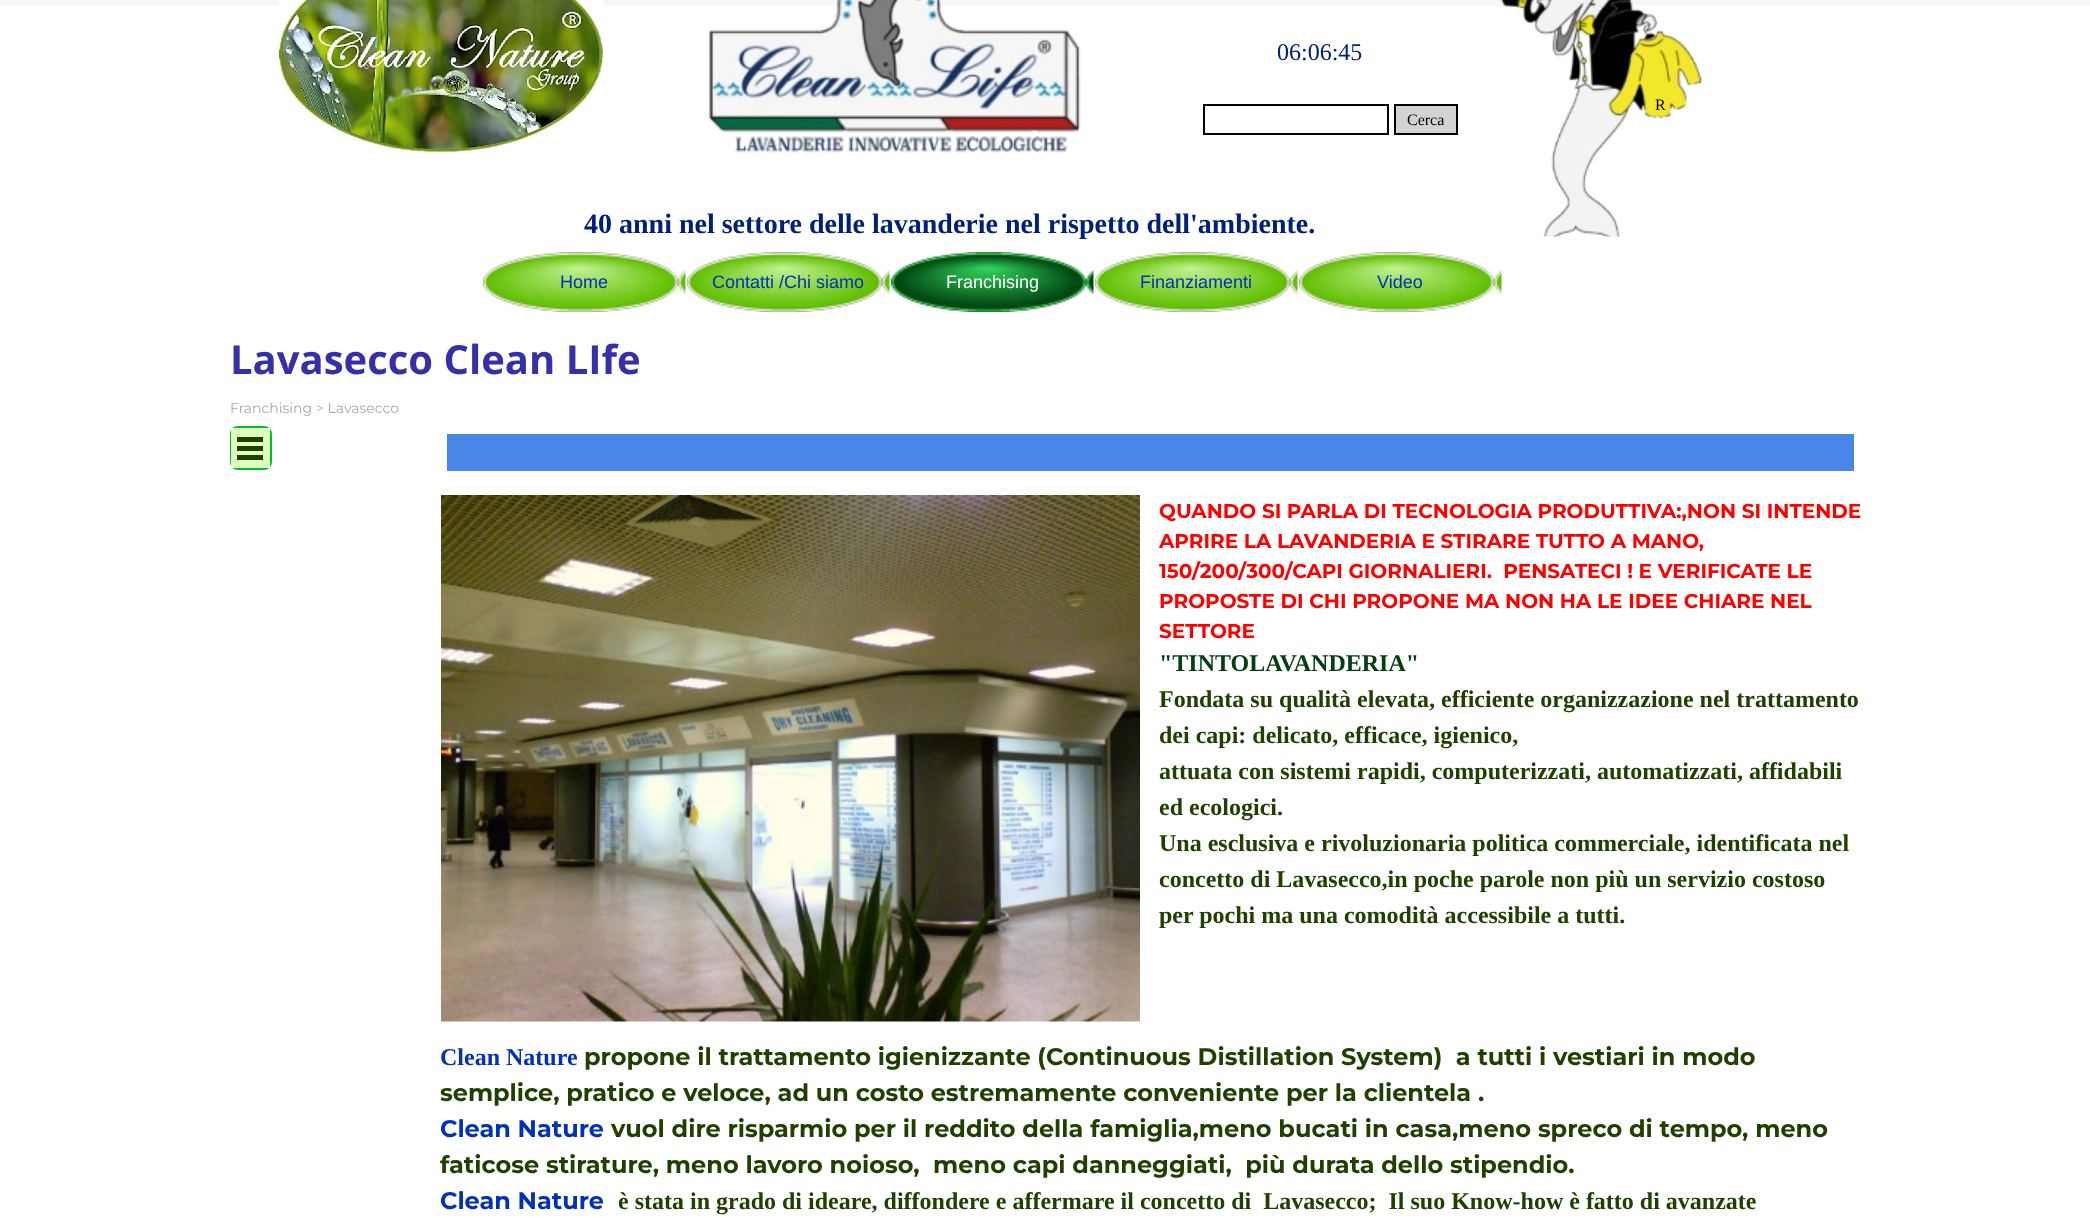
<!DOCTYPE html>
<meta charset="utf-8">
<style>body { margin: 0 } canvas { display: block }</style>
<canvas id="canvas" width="2090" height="1218"></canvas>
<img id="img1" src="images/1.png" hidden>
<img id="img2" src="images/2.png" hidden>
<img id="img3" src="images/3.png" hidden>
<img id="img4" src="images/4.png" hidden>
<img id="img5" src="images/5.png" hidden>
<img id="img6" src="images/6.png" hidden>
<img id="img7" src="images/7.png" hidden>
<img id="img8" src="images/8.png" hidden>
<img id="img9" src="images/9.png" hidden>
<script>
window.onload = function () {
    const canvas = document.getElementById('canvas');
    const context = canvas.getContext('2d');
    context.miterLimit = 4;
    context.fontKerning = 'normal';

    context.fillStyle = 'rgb(255, 255, 255)';
    context.fillRect(0, 0, 2090, 1218);
    context.fillStyle = 'rgb(247, 247, 247)';
    context.fillRect(0, 0, 2090, 6);
    context.drawImage(document.getElementById('img1'), 279, 0, 325, 153);
    context.drawImage(document.getElementById('img2'), 708, 0, 373, 153);
    context.drawImage(document.getElementById('img3'), 1501, 0, 201, 237);
    context.strokeStyle = 'rgb(0, 0, 0)';
    context.lineWidth = 2;
    context.strokeRect(1204, 105, 184, 29);
    context.fillStyle = 'rgb(211, 211, 211)';
    context.beginPath();
    context.rect(1395, 105, 62, 29);
    context.fill();
    context.stroke();
    context.drawImage(document.getElementById('img4'), 483, 252, 203, 60);
    context.drawImage(document.getElementById('img5'), 687, 252, 203, 60);
    context.drawImage(document.getElementById('img6'), 891, 252, 203, 60);
    context.drawImage(document.getElementById('img7'), 1095, 252, 203, 60);
    context.drawImage(document.getElementById('img8'), 1299, 252, 203, 60);
    context.beginPath();
    context.roundRect(231, 427, 40, 42, 7);
    context.strokeStyle = 'rgb(0, 191, 48)';
    context.stroke();
    context.fillStyle = 'rgb(223, 255, 191)';
    context.fillRect(231, 428, 39, 40);
    context.fillStyle = 'rgb(32, 64, 0)';
    context.fillRect(237, 437, 26, 5);
    context.fillRect(237, 446, 26, 5);
    context.fillRect(237, 455, 26, 5);
    context.fillStyle = 'rgb(74, 134, 232)';
    context.fillRect(447, 434, 1407, 37);
    context.drawImage(document.getElementById('img9'), 441, 495, 699, 527);
    context.font = '24px Liberation Serif';
    context.fillStyle = 'rgb(0, 32, 128)';
    context.fillText('06:06:45', 1277, 60);
    context.font = '16px Liberation Serif';
    context.fillStyle = 'rgb(0, 0, 0)';
    context.fillText('R', 1655, 110);
    context.fillText('Cerca', 1407, 125);
    context.font = 'bold 28px Liberation Serif';
    context.fillStyle = 'rgb(0, 32, 128)';
    context.fillText('40 anni nel settore delle lavanderie nel rispetto dell\'ambiente.', 584, 233);
    context.font = '18px Liberation Sans';
    context.fillStyle = 'rgb(0, 48, 191)';
    context.fillText('Home', 560, 288);
    context.fillText('Contatti /Chi siamo', 712, 288);
    context.fillStyle = 'rgb(255, 255, 255)';
    context.fillText('Franchising', 946, 288);
    context.fillStyle = 'rgb(0, 48, 191)';
    context.fillText('Finanziamenti', 1140, 288);
    context.fillText('Video', 1377, 288);
    context.font = 'bold 40px Open Sans';
    context.fillStyle = 'rgb(54, 47, 170)';
    context.fillText('Lavasecco Clean LIfe', 230, 374);
    context.font = '14px Montserrat';
    context.fillStyle = 'rgb(169, 169, 169)';
    context.fillText('Franchising > Lavasecco', 230, 413);
    context.font = 'bold 20px Montserrat';
    context.fillStyle = 'rgb(255, 0, 0)';
    context.fillText('QUANDO SI PARLA DI TECNOLOGIA PRODUTTIVA:,NON SI INTENDE', 1159, 518);
    context.fillText('APRIRE LA LAVANDERIA E STIRARE TUTTO A MANO,', 1159, 548);
    context.fillText('150/200/300/CAPI GIORNALIERI.  PENSATECI ! E VERIFICATE LE', 1159, 578);
    context.fillText('PROPOSTE DI CHI PROPONE MA NON HA LE IDEE CHIARE NEL', 1159, 608);
    context.fillText('SETTORE', 1159, 638);
    context.font = 'bold 24px Liberation Serif';
    context.fillStyle = 'rgb(0, 64, 16)';
    context.fillText('"TINTOLAVANDERIA"', 1159, 671);
    context.fillStyle = 'rgb(32, 64, 0)';
    context.fillText('Fondata su qualità elevata, efficiente organizzazione nel trattamento', 1159, 707);
    context.fillText('dei capi: delicato, efficace, igienico,', 1159, 743);
    context.fillText('attuata con sistemi rapidi, computerizzati, automatizzati, affidabili', 1159, 779);
    context.fillText('ed ecologici.', 1159, 815);
    context.fillText('Una esclusiva e rivoluzionaria politica commerciale, identificata nel', 1159, 851);
    context.fillText('concetto di Lavasecco,in poche parole non più un servizio costoso', 1159, 887);
    context.fillText('per pochi ma una comodità accessibile a tutti.', 1159, 923);
    context.fillStyle = 'rgb(0, 48, 191)';
    context.fillText('Clean Nature', 440, 1065);
    context.font = 'bold 24px Montserrat';
    context.fillStyle = 'rgb(32, 64, 0)';
    context.fillText('propone il trattamento igienizzante (Continuous Distillation System)  a tutti i vestiari in modo', 584, 1065);
    context.fillText('semplice, pratico e veloce, ad un costo estremamente conveniente per la clientela .', 440, 1101);
    context.fillStyle = 'rgb(0, 48, 191)';
    context.fillText('Clean Nature', 440, 1137);
    context.fillStyle = 'rgb(32, 64, 0)';
    context.fillText('vuol dire risparmio per il reddito della famiglia,meno bucati in casa,meno spreco di tempo, meno', 611, 1137);
    context.fillText('faticose stirature, meno lavoro noioso,  meno capi danneggiati,  più durata dello stipendio.', 440, 1173);
    context.fillStyle = 'rgb(0, 48, 191)';
    context.fillText('Clean Nature', 440, 1209);
    context.font = 'bold 24px Liberation Serif';
    context.fillStyle = 'rgb(32, 64, 0)';
    context.fillText('è stata in grado di ideare, diffondere e affermare il concetto di  Lavasecco;  Il suo Know-how è fatto di avanzate', 618, 1209);
};
</script>
